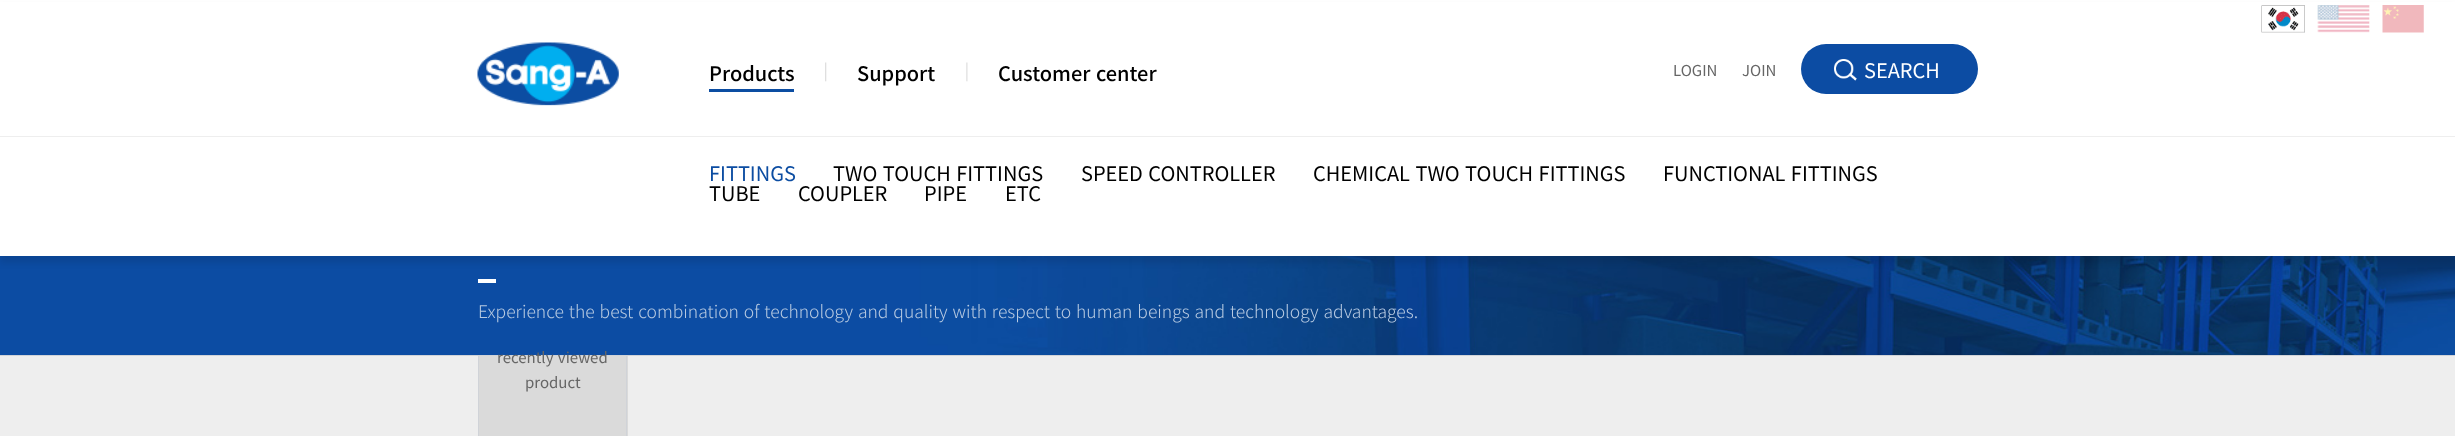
<!DOCTYPE html>
<meta charset="utf-8">
<style>body { margin: 0 } canvas { display: block }</style>
<canvas id="canvas" width="2455" height="436"></canvas>
<img id="img1" src="images/8.png" hidden>
<img id="img2" src="images/1.png" hidden>
<img id="img3" src="images/2.png" hidden>
<img id="img4" src="images/3.png" hidden>
<img id="img5" src="images/4.png" hidden>
<img id="img6" src="images/5.png" hidden>
<img id="img7" src="images/6.png" hidden>
<img id="img8" src="images/7.png" hidden>
<script>
window.onload = function () {
    const canvas = document.getElementById('canvas');
    const context = canvas.getContext('2d');
    context.miterLimit = 4;
    context.fontKerning = 'normal';

    context.fillStyle = 'rgb(255, 255, 255)';
    context.fillRect(0, 0, 2455, 436);
    context.drawImage(document.getElementById('img1'), 0, 256, 2455, 99);
    context.fillStyle = 'rgba(0, 0, 0, 0.09)';
    context.filter = 'blur(3px)';
    context.beginPath();
    context.rect(0, 6, 2455, 257);
    context.fill();
    context.filter = 'none';
    context.fillStyle = 'rgb(255, 255, 255)';
    context.fillRect(0, 2, 2455, 254);
    context.drawImage(document.getElementById('img2'), 2261, 5, 44, 28);
    context.drawImage(document.getElementById('img3'), 2317, 5, 53, 28);
    context.drawImage(document.getElementById('img4'), 2382, 5, 42, 28);
    context.drawImage(document.getElementById('img5'), 477, 42, 142, 64);
    context.fillStyle = 'rgb(12, 76, 163)';
    context.beginPath();
    context.roundRect(1801, 44, 177, 50, 25);
    context.fill();
    context.drawImage(document.getElementById('img6'), 1834, 59, 23, 22);
    context.fillStyle = 'rgb(12, 77, 162)';
    context.fillRect(709, 89, 85, 3);
    context.drawImage(document.getElementById('img7'), 825, 62, 2, 20);
    context.drawImage(document.getElementById('img8'), 966, 62, 2, 20);
    context.fillStyle = 'rgb(238, 238, 238)';
    context.fillRect(0, 136, 2455, 1);
    context.fillStyle = 'rgb(255, 255, 255)';
    context.fillRect(478, 279, 18, 4);
    context.fillStyle = 'rgb(238, 238, 238)';
    context.fillRect(0, 356, 2455, 80);
    context.fillStyle = 'rgb(208, 211, 216)';
    context.fillRect(0, 355, 2455, 1);
    context.fillStyle = 'rgb(218, 218, 218)';
    context.fillRect(479, 356, 149, 80);
    context.fillStyle = 'rgb(208, 211, 216)';
    context.fillRect(626, 356, 1, 80);
    context.fillRect(478, 356, 1, 80);
    context.font = '15px Noto Sans KR';
    context.fillStyle = 'rgb(102, 102, 102)';
    context.fillText('LOGIN', 1673, 76);
    context.fillText('JOIN', 1742, 76);
    context.font = '20px Noto Sans KR';
    context.fillStyle = 'rgb(255, 255, 255)';
    context.fillText('SEARCH', 1864, 78);
    context.font = '500 20px Noto Sans KR';
    context.fillStyle = 'rgb(0, 0, 0)';
    context.fillText('Products', 709, 81);
    context.font = '20px Noto Sans KR';
    context.fillStyle = 'rgb(12, 77, 162)';
    context.fillText('FITTINGS', 709, 181);
    context.wordSpacing = '1px';
    context.fillStyle = 'rgb(0, 0, 0)';
    context.fillText('TWO TOUCH FITTINGS', 833, 181);
    context.fillText('SPEED CONTROLLER', 1081, 181);
    context.fillText('CHEMICAL TWO TOUCH FITTINGS', 1313, 181);
    context.fillText('FUNCTIONAL FITTINGS', 1663, 181);
    context.wordSpacing = '0px';
    context.fillText('TUBE', 709, 201);
    context.fillText('COUPLER', 798, 201);
    context.fillText('PIPE', 924, 201);
    context.fillText('ETC', 1005, 201);
    context.font = '500 20px Noto Sans KR';
    context.fillText('Support', 857, 81);
    context.wordSpacing = '1px';
    context.fillText('Customer center', 998, 81);
    context.font = '300 17.5px Noto Sans KR';
    context.fillStyle = 'rgb(182, 201, 225)';
    context.fillText('Experience the best combination of technology and quality with respect to human beings and technology advantages.', 478, 318);
    context.font = '15px Noto Sans KR';
    context.fillStyle = 'rgb(102, 102, 102)';
    context.fillText('recently viewed', 497, 363);
    context.wordSpacing = '0px';
    context.fillText('product', 525, 388);
};
</script>
